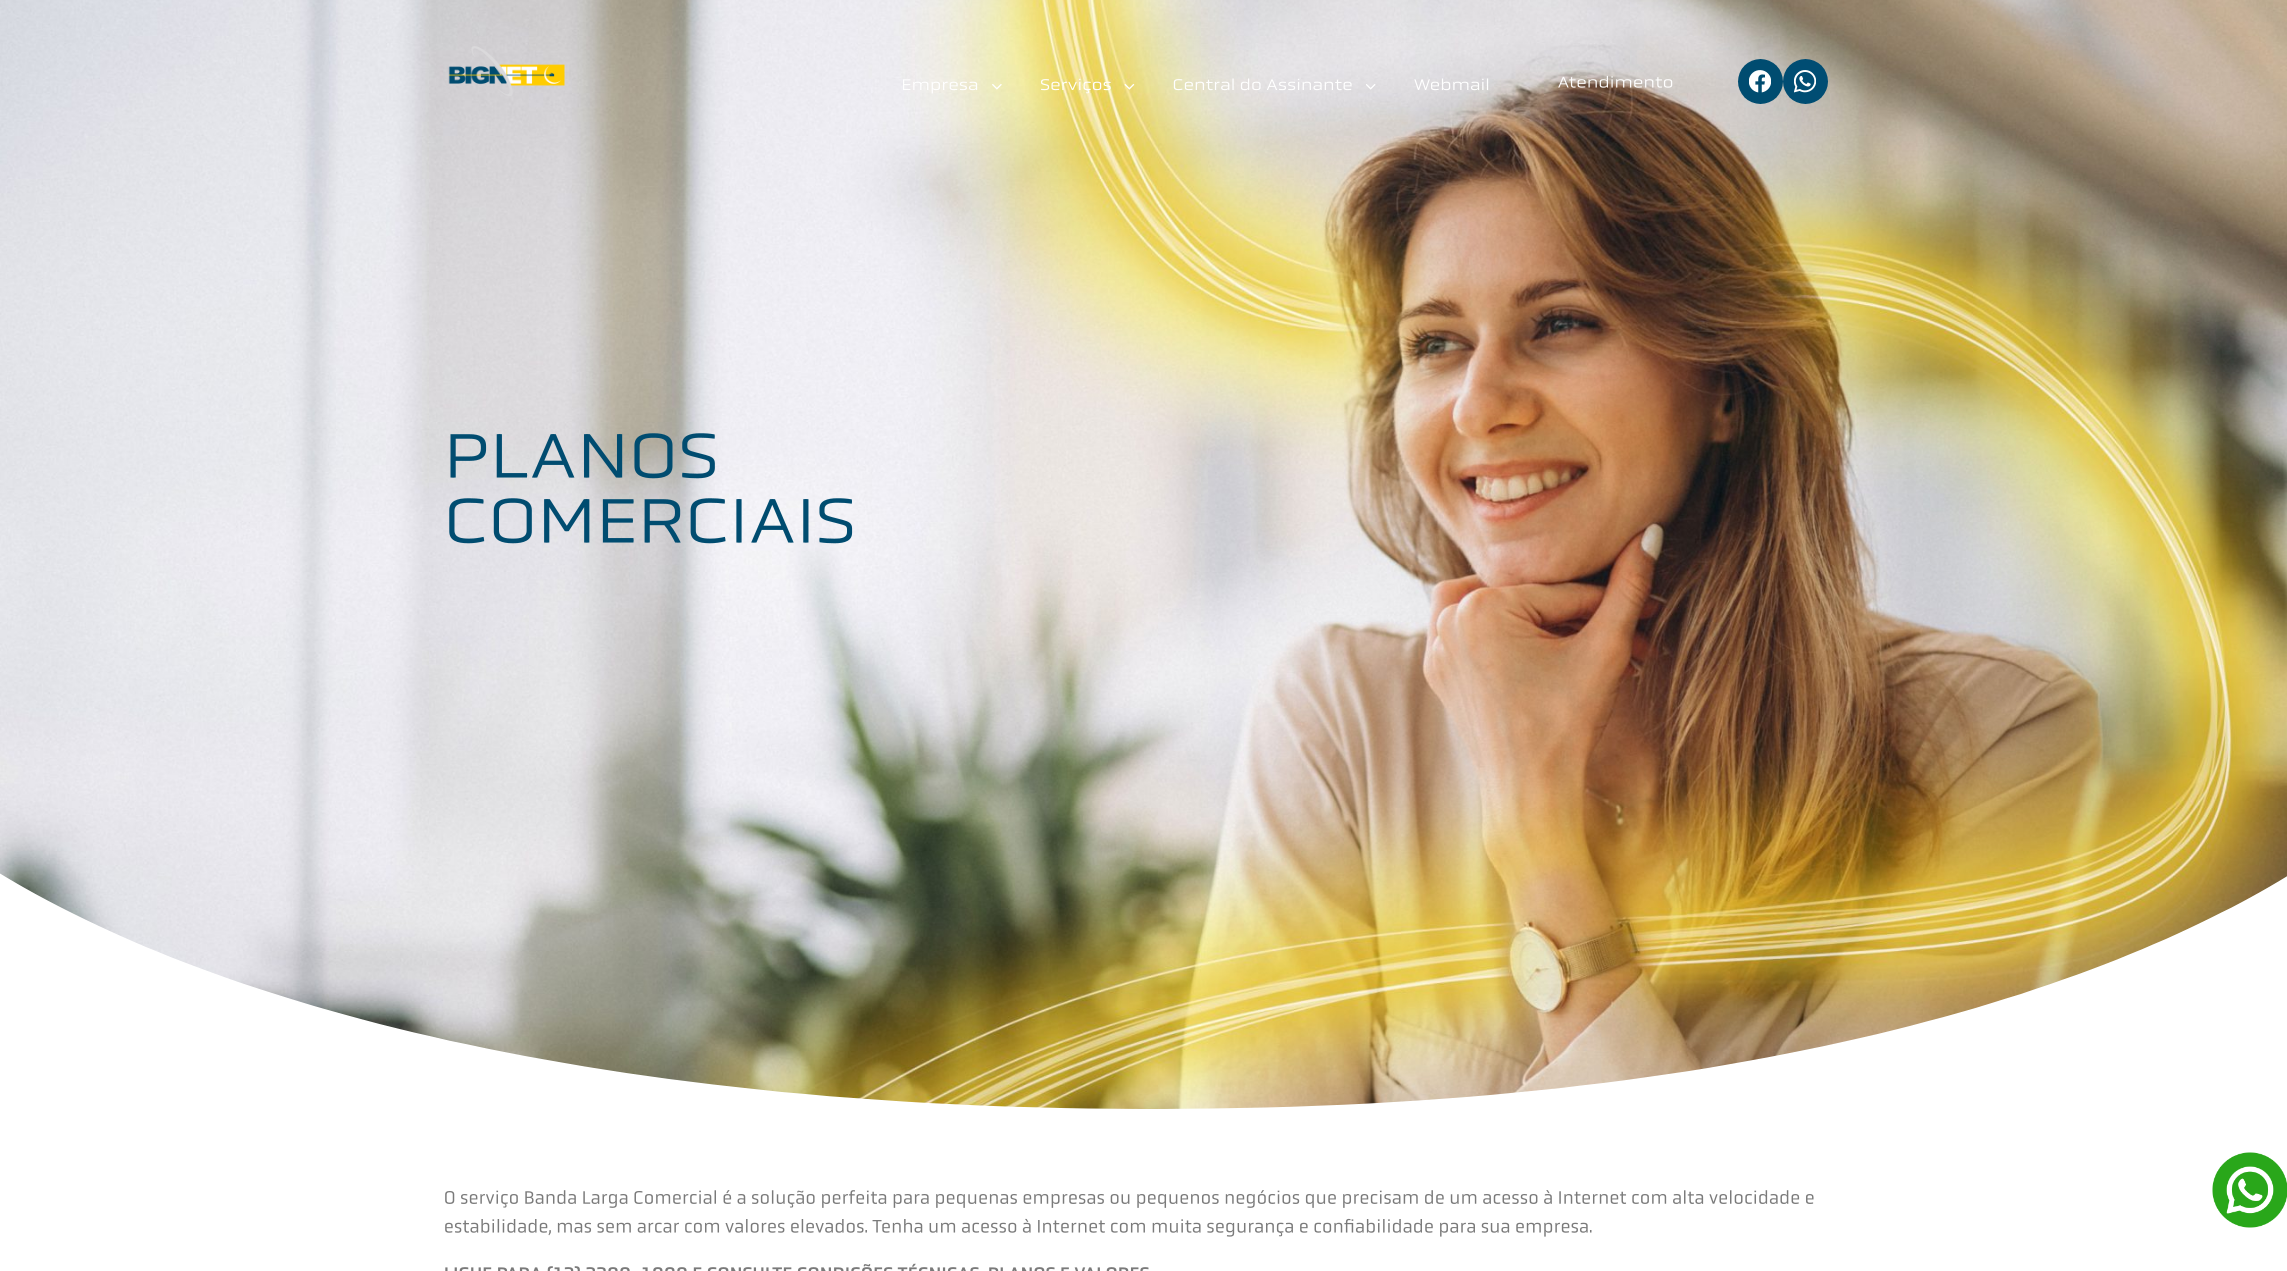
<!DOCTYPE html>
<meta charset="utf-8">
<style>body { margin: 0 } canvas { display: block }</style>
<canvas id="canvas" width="2287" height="1271"></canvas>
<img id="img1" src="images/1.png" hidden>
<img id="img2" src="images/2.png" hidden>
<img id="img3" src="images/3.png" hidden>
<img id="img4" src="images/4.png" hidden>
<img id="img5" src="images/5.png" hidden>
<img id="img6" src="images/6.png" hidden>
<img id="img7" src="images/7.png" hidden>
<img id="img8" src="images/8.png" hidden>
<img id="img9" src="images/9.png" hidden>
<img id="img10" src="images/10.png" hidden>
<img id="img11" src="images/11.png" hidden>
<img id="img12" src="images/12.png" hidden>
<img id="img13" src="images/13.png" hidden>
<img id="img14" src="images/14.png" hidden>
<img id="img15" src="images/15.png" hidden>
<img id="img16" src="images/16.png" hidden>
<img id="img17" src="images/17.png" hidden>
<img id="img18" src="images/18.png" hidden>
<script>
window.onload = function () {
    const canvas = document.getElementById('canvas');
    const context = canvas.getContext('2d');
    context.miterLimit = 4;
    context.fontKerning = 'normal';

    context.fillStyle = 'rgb(255, 255, 255)';
    context.fillRect(0, 0, 2287, 1271);
    context.drawImage(document.getElementById('img1'), 0, 0, 2287, 1109);
    context.drawImage(document.getElementById('img2'), 448, 46, 117, 50);
    context.drawImage(document.getElementById('img3'), 903, 79, 75, 15);
    context.drawImage(document.getElementById('img4'), 992, 84, 10, 6);
    context.drawImage(document.getElementById('img5'), 1041, 78, 70, 16);
    context.drawImage(document.getElementById('img6'), 1124, 83, 11, 7);
    context.drawImage(document.getElementById('img7'), 1173, 78, 179, 13);
    context.drawImage(document.getElementById('img8'), 1366, 84, 10, 6);
    context.drawImage(document.getElementById('img9'), 1414, 78, 75, 13);
    context.drawImage(document.getElementById('img10'), 1558, 75, 115, 13);
    context.fillStyle = 'rgb(0, 76, 112)';
    context.beginPath();
    context.arc(1760.5, 81.5, 22.5, 0, 2 * Math.PI);
    context.fill();
    context.drawImage(document.getElementById('img11'), 1749, 70, 22, 23);
    context.fillStyle = 'rgb(0, 77, 115)';
    context.beginPath();
    context.arc(1805.5, 81.5, 22.5, 0, 2 * Math.PI);
    context.fill();
    context.drawImage(document.getElementById('img12'), 1794, 70, 22, 23);
    context.drawImage(document.getElementById('img13'), 450, 433, 265, 46);
    context.drawImage(document.getElementById('img14'), 449, 498, 404, 46);
    context.fillStyle = 'rgb(255, 255, 255)';
    context.beginPath();
    context.moveTo(1144, 1109);
    context.bezierCurveTo(170, 1106, -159, 791, -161, 710);
    context.lineTo(-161, 1121);
    context.lineTo(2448, 1121);
    context.lineTo(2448, 714);
    context.bezierCurveTo(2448, 790, 2118, 1112, 1144, 1109);
    context.closePath();
    context.fill();
    context.drawImage(document.getElementById('img15'), 445, 1190, 1369, 18);
    context.drawImage(document.getElementById('img16'), 445, 1218, 1147, 19);
    context.drawImage(document.getElementById('img17'), 445, 1263, 704, 8);
    context.drawImage(document.getElementById('img18'), 2212, 1152, 75, 76);
};
</script>
